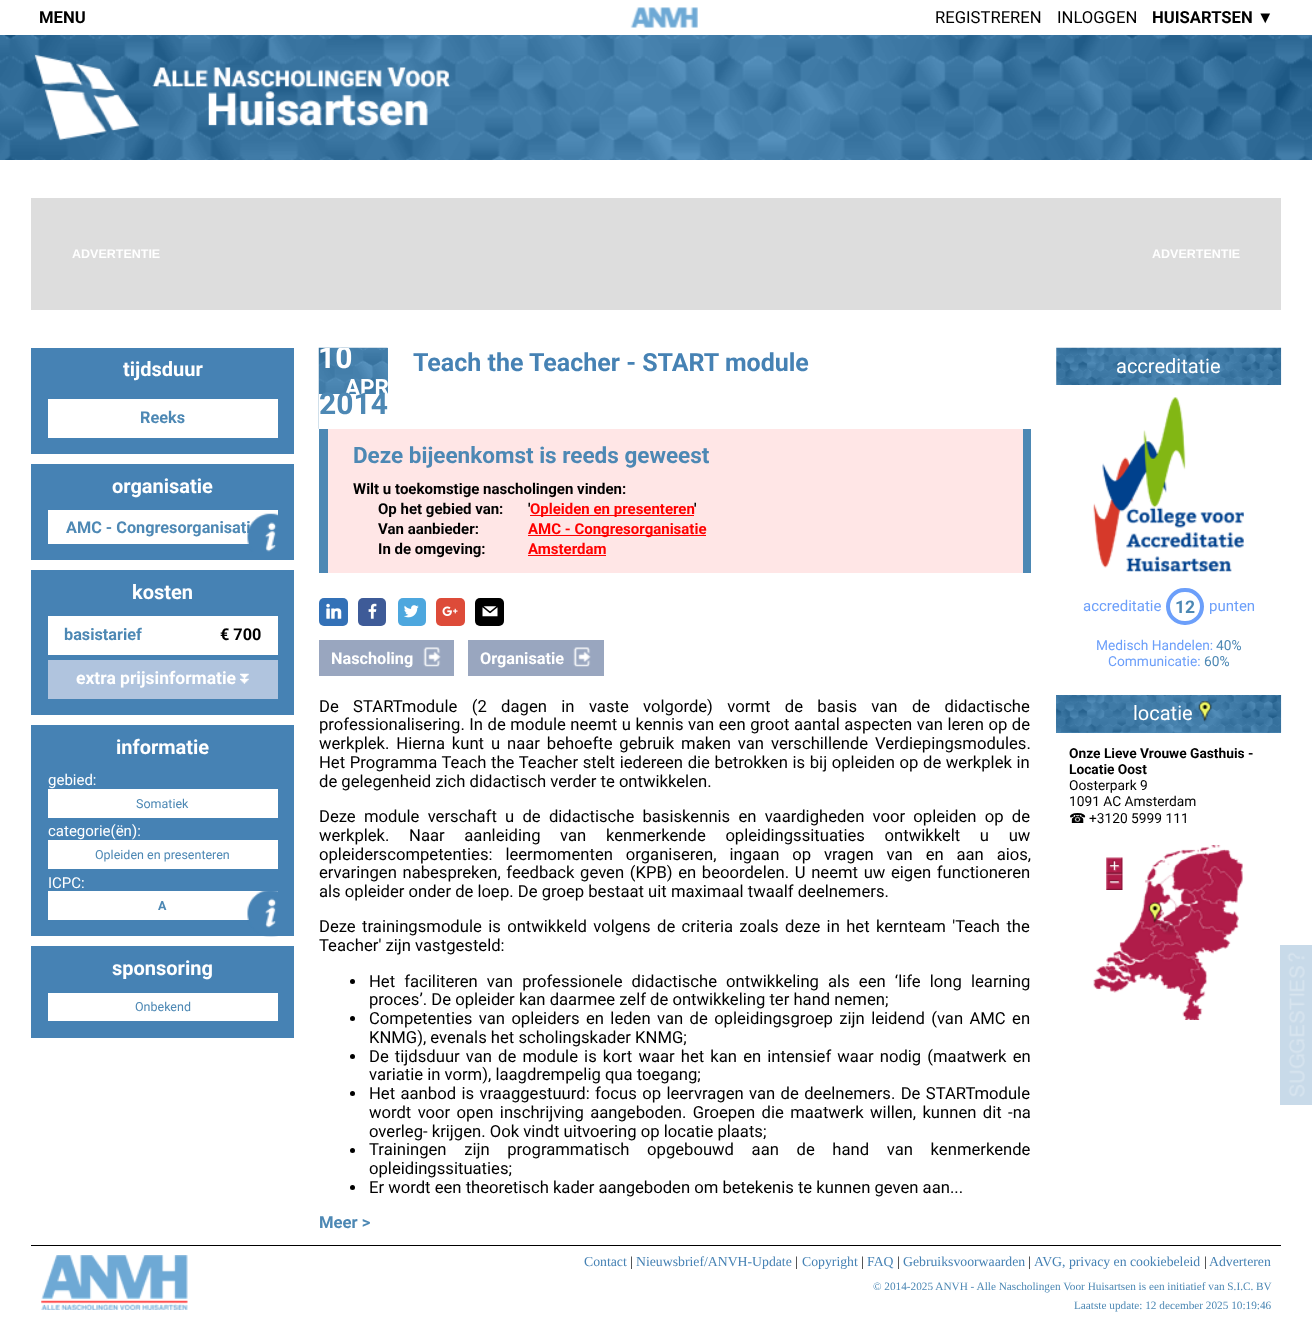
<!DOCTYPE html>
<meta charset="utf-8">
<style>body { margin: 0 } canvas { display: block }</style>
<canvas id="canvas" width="1312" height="1320"></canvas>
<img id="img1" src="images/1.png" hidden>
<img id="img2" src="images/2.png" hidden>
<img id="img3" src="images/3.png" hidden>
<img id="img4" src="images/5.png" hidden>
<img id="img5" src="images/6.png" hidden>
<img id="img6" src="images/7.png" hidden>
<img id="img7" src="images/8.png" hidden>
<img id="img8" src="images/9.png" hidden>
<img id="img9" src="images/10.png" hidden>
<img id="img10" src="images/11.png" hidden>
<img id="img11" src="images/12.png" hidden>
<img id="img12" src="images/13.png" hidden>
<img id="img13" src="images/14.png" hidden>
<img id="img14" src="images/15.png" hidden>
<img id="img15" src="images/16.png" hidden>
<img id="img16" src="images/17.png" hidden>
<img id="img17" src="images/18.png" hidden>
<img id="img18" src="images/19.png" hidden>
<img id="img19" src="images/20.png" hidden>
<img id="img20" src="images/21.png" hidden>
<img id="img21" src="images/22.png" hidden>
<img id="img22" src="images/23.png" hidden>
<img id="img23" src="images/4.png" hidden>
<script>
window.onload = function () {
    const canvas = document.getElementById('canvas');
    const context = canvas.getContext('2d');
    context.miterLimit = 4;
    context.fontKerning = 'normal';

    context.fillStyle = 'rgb(255, 255, 255)';
    context.fillRect(0, 0, 1312, 1320);
    context.drawImage(document.getElementById('img1'), 630, 7, 68, 21);
    context.drawImage(document.getElementById('img2'), 0, 35, 1312, 125);
    context.drawImage(document.getElementById('img3'), 34, 54, 417, 87);
    context.fillStyle = 'rgb(221, 221, 221)';
    context.fillRect(31, 198, 1250, 112);
    context.fillStyle = 'rgb(70, 130, 180)';
    context.fillRect(31, 348, 263, 106);
    context.fillStyle = 'rgb(255, 255, 255)';
    context.fillRect(48, 399, 230, 39);
    context.fillStyle = 'rgb(70, 130, 180)';
    context.fillRect(31, 464, 263, 96);
    context.fillStyle = 'rgb(255, 255, 255)';
    context.fillRect(48, 510, 230, 34);
    context.fillStyle = 'rgb(70, 130, 180)';
    context.fillRect(31, 570, 263, 145);
    context.fillStyle = 'rgb(255, 255, 255)';
    context.fillRect(48, 616, 230, 39);
    context.fillStyle = 'rgb(176, 196, 222)';
    context.fillRect(48, 660, 230, 39);
    context.drawImage(document.getElementById('img4'), 240, 673, 9, 11);
    context.fillStyle = 'rgb(70, 130, 180)';
    context.fillRect(31, 725, 263, 211);
    context.fillStyle = 'rgb(255, 255, 255)';
    context.fillRect(48, 789, 230, 29);
    context.fillRect(48, 840, 230, 29);
    context.fillRect(48, 891, 230, 29);
    context.drawImage(document.getElementById('img5'), 247, 891, 31, 46);
    context.fillStyle = 'rgb(70, 130, 180)';
    context.fillRect(31, 946, 263, 92);
    context.fillStyle = 'rgb(255, 255, 255)';
    context.fillRect(48, 993, 230, 28);
    context.fillStyle = 'rgb(77, 136, 180)';
    context.fillRect(387, 348, 1, 46);
    context.drawImage(document.getElementById('img6'), 318, 347, 70, 82);
    context.fillStyle = 'rgb(255, 255, 255)';
    context.fillRect(319, 394, 69, 35);
    context.fillStyle = 'rgb(255, 230, 230)';
    context.fillRect(328, 429, 695, 144);
    context.fillStyle = 'rgb(77, 136, 180)';
    context.fillRect(1023, 429, 8, 144);
    context.fillRect(319, 429, 9, 144);
    context.fillStyle = 'rgb(255, 0, 0)';
    context.fillRect(530, 515, 164, 1);
    context.fillRect(528, 535, 178, 1);
    context.fillRect(528, 555, 78, 1);
    context.fillStyle = 'rgb(51, 113, 183)';
    context.beginPath();
    context.roundRect(319, 598, 29, 28, 5);
    context.fill();
    context.drawImage(document.getElementById('img7'), 326, 603, 16, 16);
    context.fillStyle = 'rgb(62, 91, 152)';
    context.beginPath();
    context.roundRect(358, 598, 28, 28, 5);
    context.fill();
    context.drawImage(document.getElementById('img8'), 368, 603, 9, 16);
    context.fillStyle = 'rgb(77, 167, 222)';
    context.beginPath();
    context.roundRect(398, 598, 28, 28, 5);
    context.fill();
    context.drawImage(document.getElementById('img9'), 404, 605, 15, 13);
    context.fillStyle = 'rgb(221, 75, 57)';
    context.beginPath();
    context.roundRect(436, 598, 29, 28, 5);
    context.fill();
    context.drawImage(document.getElementById('img10'), 442, 606, 16, 11);
    context.fillStyle = 'rgb(0, 0, 0)';
    context.beginPath();
    context.roundRect(475, 598, 29, 28, 5);
    context.fill();
    context.drawImage(document.getElementById('img11'), 482, 606, 16, 11);
    context.fillStyle = 'rgb(153, 166, 191)';
    context.fillRect(319, 640, 135, 36);
    context.drawImage(document.getElementById('img12'), 423, 647, 18, 20);
    context.fillRect(468, 640, 136, 36);
    context.drawImage(document.getElementById('img13'), 573, 647, 18, 20);
    context.fillStyle = 'rgb(0, 0, 0)';
    context.beginPath();
    context.arc(352.5, 981.5, 2.5, 0, 2 * Math.PI);
    context.fill();
    context.beginPath();
    context.arc(352.5, 1018.5, 2.5, 0, 2 * Math.PI);
    context.fill();
    context.beginPath();
    context.arc(352.5, 1056.5, 2.5, 0, 2 * Math.PI);
    context.fill();
    context.beginPath();
    context.arc(352.5, 1093.5, 2.5, 0, 2 * Math.PI);
    context.fill();
    context.beginPath();
    context.arc(352.5, 1150.5, 2.5, 0, 2 * Math.PI);
    context.fill();
    context.beginPath();
    context.arc(352.5, 1187.5, 2.5, 0, 2 * Math.PI);
    context.fill();
    context.drawImage(document.getElementById('img14'), 1056, 347, 226, 38);
    context.drawImage(document.getElementById('img15'), 1093, 397, 151, 175);
    context.beginPath();
    context.roundRect(1168, 590, 34, 33, 16.5);
    context.strokeStyle = 'rgb(108, 159, 250)';
    context.lineWidth = 4;
    context.stroke();
    context.fillStyle = 'rgb(77, 136, 180)';
    context.fillRect(1056, 695, 225, 38);
    context.drawImage(document.getElementById('img16'), 1056, 695, 226, 38);
    context.drawImage(document.getElementById('img17'), 1198, 701, 14, 21);
    context.drawImage(document.getElementById('img18'), 1093, 845, 150, 175);
    context.drawImage(document.getElementById('img19'), 1106, 857, 17, 33);
    context.drawImage(document.getElementById('img20'), 1148, 902, 28, 33);
    context.fillStyle = 'rgb(200, 218, 233)';
    context.fillRect(1280, 945, 32, 160);
    context.drawImage(document.getElementById('img21'), 1287, 952, 18, 145);
    context.fillStyle = 'rgb(0, 0, 0)';
    context.fillRect(31, 1245, 1250, 1);
    context.drawImage(document.getElementById('img22'), 41, 1255, 147, 55);
    context.font = 'bold 16.65px Roboto';
    context.fillText('MENU', 39, 23);
    context.font = '16.65px Roboto';
    context.fillText('REGISTREREN', 935, 23);
    context.fillText('INLOGGEN', 1057, 23);
    context.font = 'bold 16.65px Roboto';
    context.fillText('HUISARTSEN', 1152, 23);
    context.font = 'bold 16.65px Liberation Sans';
    context.fillText('▼', 1257, 23);
    context.font = 'bold 12.5px Liberation Sans';
    context.fillStyle = 'rgb(255, 255, 255)';
    context.fillText('ADVERTENTIE', 72, 258);
    context.fillText('ADVERTENTIE', 1152, 258);
    context.font = 'bold 20px Roboto';
    context.fillText('tijdsduur', 123, 376);
    context.font = 'bold 16.25px Roboto';
    context.fillStyle = 'rgb(77, 136, 180)';
    context.fillText('Reeks', 140, 423);
    context.font = 'bold 20px Roboto';
    context.fillStyle = 'rgb(255, 255, 255)';
    context.fillText('organisatie', 112, 493);
    context.font = 'bold 16.25px Roboto';
    context.fillStyle = 'rgb(77, 136, 180)';
    context.fillText('AMC - Congresorganisati', 66, 533);
    context.drawImage(document.getElementById('img23'), 247, 513, 31, 39);
    context.font = 'bold 20px Roboto';
    context.fillStyle = 'rgb(255, 255, 255)';
    context.fillText('kosten', 132, 599);
    context.font = 'bold 16.25px Roboto';
    context.fillStyle = 'rgb(77, 136, 180)';
    context.fillText('basistarief', 64, 640);
    context.fillStyle = 'rgb(0, 0, 0)';
    context.fillText('€ 700', 220, 640);
    context.font = 'bold 17.5px Roboto';
    context.fillStyle = 'rgb(255, 255, 255)';
    context.fillText('extra prijsinformatie', 76, 684);
    context.font = 'bold 20px Roboto';
    context.fillText('informatie', 116, 754);
    context.font = '15px Roboto';
    context.fillText('gebied:', 48, 785);
    context.font = '12.5px Roboto';
    context.fillStyle = 'rgb(77, 136, 180)';
    context.fillText('Somatiek', 136, 808);
    context.font = '15px Roboto';
    context.fillStyle = 'rgb(255, 255, 255)';
    context.fillText('categorie(ën):', 48, 836);
    context.font = '12.5px Roboto';
    context.fillStyle = 'rgb(77, 136, 180)';
    context.fillText('Opleiden en presenteren', 95, 859);
    context.font = '15px Roboto';
    context.fillStyle = 'rgb(255, 255, 255)';
    context.fillText('ICPC:', 48, 888);
    context.font = 'bold 12.5px Roboto';
    context.fillStyle = 'rgb(77, 136, 180)';
    context.fillText('A', 158, 910);
    context.font = 'bold 20px Roboto';
    context.fillStyle = 'rgb(255, 255, 255)';
    context.fillText('sponsoring', 112, 975);
    context.font = '12.5px Roboto';
    context.fillStyle = 'rgb(77, 136, 180)';
    context.fillText('Onbekend', 135, 1011);
    context.save();
    context.beginPath();
    context.rect(31, 348, 1250, 910);
    context.clip();
    context.font = 'bold 30px Roboto';
    context.fillStyle = 'rgb(255, 255, 255)';
    context.fillText('10', 318, 368);
    context.restore();
    context.font = 'bold 22.5px Roboto';
    context.fillStyle = 'rgb(255, 255, 255)';
    context.fillText('APR', 345, 395);
    context.font = 'bold 30px Roboto';
    context.fillStyle = 'rgb(77, 136, 180)';
    context.fillText('2014', 319, 414);
    context.font = 'bold 25px Roboto';
    context.fillStyle = 'rgb(70, 130, 180)';
    context.fillText('Teach the Teacher - START module', 413, 371);
    context.font = 'bold 22.5px Roboto';
    context.fillStyle = 'rgb(77, 136, 180)';
    context.fillText('Deze bijeenkomst is reeds geweest', 353, 463);
    context.font = 'bold 15px Roboto';
    context.fillStyle = 'rgb(0, 0, 0)';
    context.fillText('Wilt u toekomstige nascholingen vinden:', 353, 494);
    context.fillText('Op het gebied van:', 378, 514);
    context.fillText('\'', 528, 514);
    context.fillStyle = 'rgb(255, 0, 0)';
    context.fillText('Opleiden en presenteren', 530, 514);
    context.fillStyle = 'rgb(0, 0, 0)';
    context.fillText('\'', 694, 514);
    context.fillText('Van aanbieder:', 378, 534);
    context.fillStyle = 'rgb(255, 0, 0)';
    context.fillText('AMC - Congresorganisatie', 528, 534);
    context.fillStyle = 'rgb(0, 0, 0)';
    context.fillText('In de omgeving:', 378, 554);
    context.fillStyle = 'rgb(255, 0, 0)';
    context.fillText('Amsterdam', 528, 554);
    context.font = 'bold 16.25px Roboto';
    context.fillStyle = 'rgb(255, 255, 255)';
    context.fillText('Nascholing', 331, 664);
    context.fillText('Organisatie', 480, 664);
    context.wordSpacing = '10.25px';
    context.font = '16.65px Roboto';
    context.fillStyle = 'rgb(0, 0, 0)';
    context.fillText('De STARTmodule (2 dagen in vaste volgorde) vormt de basis van de didactische', 319, 712);
    context.wordSpacing = '0.4px';
    context.fillText('professionalisering. In de module neemt u kennis van een groot aantal aspecten van leren op de', 319, 730);
    context.wordSpacing = '2.75px';
    context.fillText('werkplek. Hierna kunt u naar behoefte gebruik maken van verschillende Verdiepingsmodules.', 319, 749);
    context.wordSpacing = '0.5px';
    context.fillText('Het Programma Teach the Teacher stelt iedereen die betrokken is bij opleiden op de werkplek in', 319, 768);
    context.wordSpacing = '0px';
    context.fillText('de gelegenheid zich didactisch verder te ontwikkelen.', 319, 787);
    context.wordSpacing = '4.1px';
    context.fillText('Deze module verschaft u de didactische basiskennis en vaardigheden voor opleiden op de', 319, 822);
    context.wordSpacing = '15.5px';
    context.fillText('werkplek. Naar aanleiding van kenmerkende opleidingssituaties ontwikkelt u uw', 319, 841);
    context.wordSpacing = '8.75px';
    context.fillText('opleiderscompetenties: leermomenten organiseren, ingaan op vragen van en aan aios,', 319, 860);
    context.wordSpacing = '1.5px';
    context.fillText('ervaringen nabespreken, feedback geven (KPB) en beoordelen. U neemt uw eigen functioneren', 319, 878);
    context.wordSpacing = '0px';
    context.fillText('als opleider onder de loep. De groep bestaat uit maximaal twaalf deelnemers.', 319, 897);
    context.wordSpacing = '2.25px';
    context.fillText('Deze trainingsmodule is ontwikkeld volgens de criteria zoals deze in het kernteam \'Teach the', 319, 932);
    context.wordSpacing = '0px';
    context.fillText('Teacher\' zijn vastgesteld:', 319, 951);
    context.wordSpacing = '5px';
    context.fillText('Het faciliteren van professionele didactische ontwikkeling als een ‘life long learning', 369, 987);
    context.wordSpacing = '0px';
    context.fillText('proces’. De opleider kan daarmee zelf de ontwikkeling ter hand nemen;', 369, 1005);
    context.wordSpacing = '2.25px';
    context.fillText('Competenties van opleiders en leden van de opleidingsgroep zijn leidend (van AMC en', 369, 1024);
    context.wordSpacing = '0px';
    context.fillText('KNMG), evenals het scholingskader KNMG;', 369, 1043);
    context.wordSpacing = '2px';
    context.fillText('De tijdsduur van de module is kort waar het kan en intensief waar nodig (maatwerk en', 369, 1062);
    context.wordSpacing = '0px';
    context.fillText('variatie in vorm), laagdrempelig qua toegang;', 369, 1080);
    context.wordSpacing = '1.25px';
    context.fillText('Het aanbod is vraaggestuurd: focus op leervragen van de deelnemers. De STARTmodule', 369, 1099);
    context.wordSpacing = '2.25px';
    context.fillText('wordt voor open inschrijving aangeboden. Groepen die maatwerk willen, kunnen dit -na', 369, 1118);
    context.wordSpacing = '0px';
    context.fillText('overleg- krijgen. Ook vindt uitvoering op locatie plaats;', 369, 1137);
    context.wordSpacing = '13.5px';
    context.fillText('Trainingen zijn programmatisch opgebouwd aan de hand van kenmerkende', 369, 1155);
    context.wordSpacing = '0px';
    context.fillText('opleidingssituaties;', 369, 1174);
    context.fillText('Er wordt een theoretisch kader aangeboden om betekenis te kunnen geven aan...', 369, 1193);
    context.font = 'bold 16.65px Roboto';
    context.fillStyle = 'rgb(77, 136, 180)';
    context.fillText('Meer >', 319, 1228);
    context.font = '20px Roboto';
    context.fillStyle = 'rgb(255, 255, 255)';
    context.fillText('accreditatie', 1116, 373);
    context.font = '15px Roboto';
    context.fillStyle = 'rgb(108, 159, 250)';
    context.fillText('accreditatie', 1083, 611);
    context.font = 'bold 17.5px Roboto';
    context.fillStyle = 'rgb(77, 136, 180)';
    context.fillText('12', 1175, 613);
    context.font = '15px Roboto';
    context.fillStyle = 'rgb(108, 159, 250)';
    context.fillText('punten', 1209, 611);
    context.font = '13.75px Roboto';
    context.fillText('Medisch Handelen:', 1096, 650);
    context.fillStyle = 'rgb(77, 136, 180)';
    context.fillText('40%', 1216, 650);
    context.fillStyle = 'rgb(108, 159, 250)';
    context.fillText('Communicatie:', 1108, 666);
    context.fillStyle = 'rgb(77, 136, 180)';
    context.fillText('60%', 1204, 666);
    context.font = '20px Roboto';
    context.fillStyle = 'rgb(255, 255, 255)';
    context.fillText('locatie', 1133, 720);
    context.font = 'bold 13.75px Roboto';
    context.fillStyle = 'rgb(0, 0, 0)';
    context.fillText('Onze Lieve Vrouwe Gasthuis -', 1069, 758);
    context.fillText('Locatie Oost', 1069, 774);
    context.font = '13.75px Roboto';
    context.fillText('Oosterpark 9', 1069, 790);
    context.fillText('1091 AC Amsterdam', 1069, 806);
    context.font = '13.75px DejaVu Sans';
    context.fillText('☎', 1069, 823);
    context.font = '13.75px Roboto';
    context.fillText('+3120 5999 111', 1089, 823);
    context.font = '13.75px Liberation Serif';
    context.fillStyle = 'rgb(70, 130, 180)';
    context.fillText('Contact', 584, 1266);
    context.fillStyle = 'rgb(0, 0, 0)';
    context.fillText('|', 630, 1266);
    context.fillStyle = 'rgb(70, 130, 180)';
    context.fillText('Nieuwsbrief/ANVH-Update', 636, 1266);
    context.fillStyle = 'rgb(0, 0, 0)';
    context.fillText('|', 795, 1266);
    context.fillStyle = 'rgb(70, 130, 180)';
    context.fillText('Copyright', 802, 1266);
    context.fillStyle = 'rgb(0, 0, 0)';
    context.fillText('|', 861, 1266);
    context.fillStyle = 'rgb(70, 130, 180)';
    context.fillText('FAQ', 867, 1266);
    context.fillStyle = 'rgb(0, 0, 0)';
    context.fillText('|', 897, 1266);
    context.fillStyle = 'rgb(70, 130, 180)';
    context.fillText('Gebruiksvoorwaarden', 903, 1266);
    context.fillStyle = 'rgb(0, 0, 0)';
    context.fillText('|', 1028, 1266);
    context.fillStyle = 'rgb(70, 130, 180)';
    context.fillText('AVG, privacy en cookiebeleid', 1034, 1266);
    context.fillStyle = 'rgb(0, 0, 0)';
    context.fillText('|', 1204, 1266);
    context.fillStyle = 'rgb(70, 130, 180)';
    context.fillText('Adverteren', 1209, 1266);
    context.font = '11.25px Liberation Serif';
    context.fillStyle = 'rgb(77, 136, 180)';
    context.fillText('© 2014-2025 ANVH - Alle Nascholingen Voor Huisartsen is een initiatief van S.I.C. BV', 873, 1290);
    context.fillText('Laatste update: 12 december 2025 10:19:46', 1074, 1309);
};
</script>
